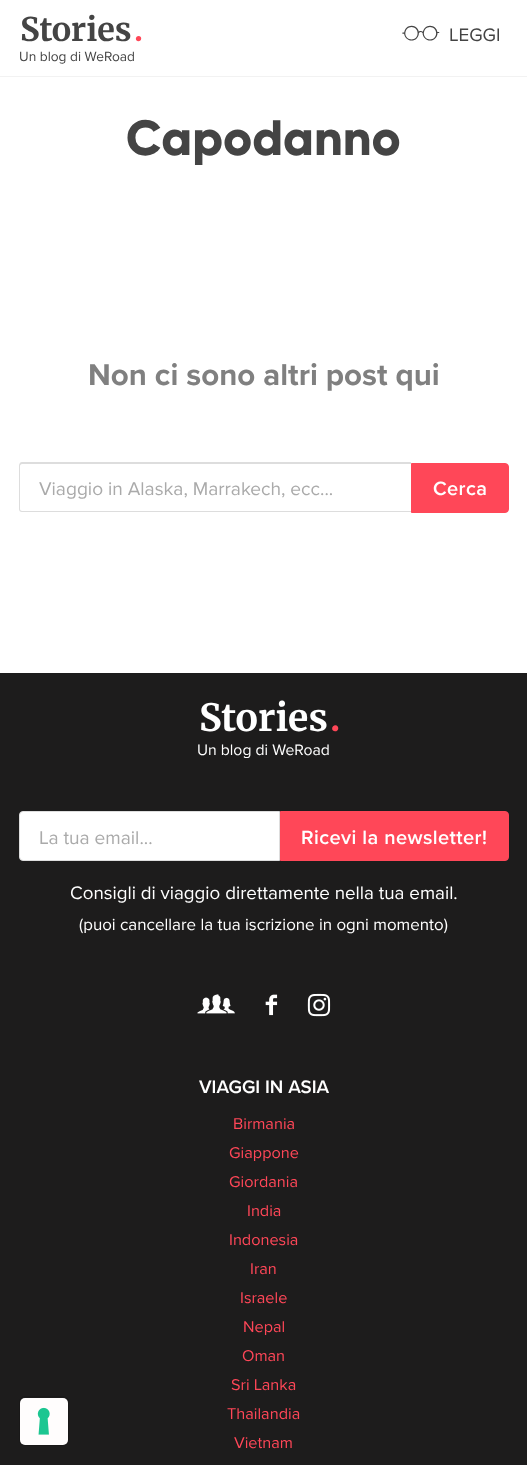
<!DOCTYPE html>
<meta charset="utf-8">
<style>body { margin: 0 } canvas { display: block }</style>
<canvas id="canvas" width="527" height="1465"></canvas>
<img id="img1" src="images/1.png" hidden>
<img id="img2" src="images/2.png" hidden>
<img id="img3" src="images/3.png" hidden>
<img id="img4" src="images/4.png" hidden>
<script>
window.onload = function () {
    const canvas = document.getElementById('canvas');
    const context = canvas.getContext('2d');
    context.miterLimit = 4;
    context.fontKerning = 'normal';

    context.fillStyle = 'rgb(255, 255, 255)';
    context.fillRect(0, 0, 527, 1465);
    context.fillStyle = 'rgb(242, 242, 242)';
    context.fillRect(0, 76, 527, 1);
    context.fillStyle = 'rgb(221, 221, 221)';
    context.beginPath();
    context.moveTo(22, 462);
    context.lineTo(411, 462);
    context.lineTo(411, 512);
    context.lineTo(22, 512);
    context.bezierCurveTo(20, 512, 19, 511, 19, 509);
    context.lineTo(19, 466);
    context.bezierCurveTo(19, 464, 20, 462, 22, 462);
    context.closePath();
    context.moveTo(22, 464);
    context.lineTo(411, 464);
    context.lineTo(411, 511);
    context.lineTo(22, 511);
    context.bezierCurveTo(21, 511, 20, 510, 20, 509);
    context.lineTo(20, 466);
    context.bezierCurveTo(20, 465, 21, 464, 22, 464);
    context.closePath();
    context.fill('evenodd');
    context.fillStyle = 'rgb(255, 71, 88)';
    context.beginPath();
    context.roundRect(411.5, 463.5, 97, 49, [0, 3.5, 3.5, 0]);
    context.fill();
    context.strokeStyle = 'rgb(255, 71, 88)';
    context.stroke();
    context.fillStyle = 'rgb(29, 28, 28)';
    context.fillRect(0, 673, 527, 792);
    context.fillStyle = 'rgb(255, 255, 255)';
    context.beginPath();
    context.roundRect(19.5, 811.5, 260, 49, [3.5, 0, 0, 3.5]);
    context.fill();
    context.strokeStyle = 'rgb(221, 221, 221)';
    context.stroke();
    context.fillStyle = 'rgb(255, 71, 88)';
    context.beginPath();
    context.roundRect(280.5, 811.5, 228, 49, [0, 3.5, 3.5, 0]);
    context.fill();
    context.strokeStyle = 'rgb(255, 71, 88)';
    context.stroke();
    context.drawImage(document.getElementById('img1'), 197, 994, 38, 20);
    context.drawImage(document.getElementById('img2'), 265, 994, 13, 22);
    context.drawImage(document.getElementById('img3'), 307, 993, 24, 24);
    context.beginPath();
    context.roundRect(19.5, 1396.5, 49, 49, 5.5);
    context.strokeStyle = 'rgb(25, 24, 24)';
    context.stroke();
    context.fillStyle = 'rgb(255, 253, 253)';
    context.beginPath();
    context.roundRect(20, 1398, 48, 47, 5);
    context.fill();
    context.drawImage(document.getElementById('img4'), 37, 1407, 13, 28);
    context.font = 'bold 32.5px Merriweather';
    context.fillStyle = 'rgb(68, 68, 68)';
    context.fillText('Stories', 20, 41);
    context.fillStyle = 'rgb(255, 71, 88)';
    context.fillText('.', 134, 41);
    context.font = '13.75px Proxima Nova';
    context.fillStyle = 'rgb(68, 68, 68)';
    context.fillText('Un blog di WeRoad', 19, 61);
    context.font = '37.5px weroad';
    context.fillText('"', 402, 52);
    context.font = '18.75px Proxima Nova';
    context.fillText('LEGGI', 449, 41);
    context.font = '49.5px Gilroy';
    context.fillText('Capodanno', 126, 155);
    context.font = 'bold 31.25px Proxima Nova';
    context.fillStyle = 'rgb(128, 128, 128)';
    context.fillText('Non ci sono altri post qui', 88, 385);
    context.font = '19.1px Proxima Nova';
    context.fillStyle = 'rgb(170, 170, 170)';
    context.fillText('Viaggio in Alaska, Marrakech, ecc...', 39, 495);
    context.letterSpacing = '0.4px';
    context.font = '600 20px Proxima Nova';
    context.fillStyle = 'rgb(255, 255, 255)';
    context.fillText('Cerca', 433, 495);
    context.letterSpacing = '0px';
    context.font = 'bold 37.5px Merriweather';
    context.fillText('Stories', 199, 731);
    context.fillStyle = 'rgb(255, 71, 88)';
    context.fillText('.', 330, 731);
    context.font = '15.75px Proxima Nova';
    context.fillStyle = 'rgb(255, 255, 255)';
    context.fillText('Un blog di WeRoad', 197, 755);
    context.font = '19.1px Proxima Nova';
    context.fillStyle = 'rgb(170, 170, 170)';
    context.fillText('La tua email...', 39, 844);
    context.letterSpacing = '0.4px';
    context.font = '600 20px Proxima Nova';
    context.fillStyle = 'rgb(255, 255, 255)';
    context.fillText('Ricevi la newsletter!', 301, 844);
    context.letterSpacing = '0px';
    context.font = '18.75px Proxima Nova';
    context.fillText('Consigli di viaggio direttamente nella tua email.', 70, 899);
    context.font = '16.9px Proxima Nova';
    context.fillText('(puoi cancellare la tua iscrizione in ogni momento)', 79, 930);
    context.font = '600 18.75px Proxima Nova';
    context.fillText('VIAGGI IN ASIA', 199, 1093);
    context.font = '16.25px Proxima Nova';
    context.fillStyle = 'rgb(255, 71, 88)';
    context.fillText('Birmania', 233, 1129);
    context.fillText('Giappone', 229, 1158);
    context.fillText('Giordania', 229, 1187);
    context.fillText('India', 247, 1216);
    context.fillText('Indonesia', 229, 1245);
    context.fillText('Iran', 250, 1274);
    context.fillText('Israele', 240, 1303);
    context.fillText('Nepal', 243, 1332);
    context.fillText('Oman', 242, 1361);
    context.fillText('Sri Lanka', 231, 1390);
    context.fillText('Thailandia', 227, 1419);
    context.fillText('Vietnam', 234, 1448);
};
</script>
